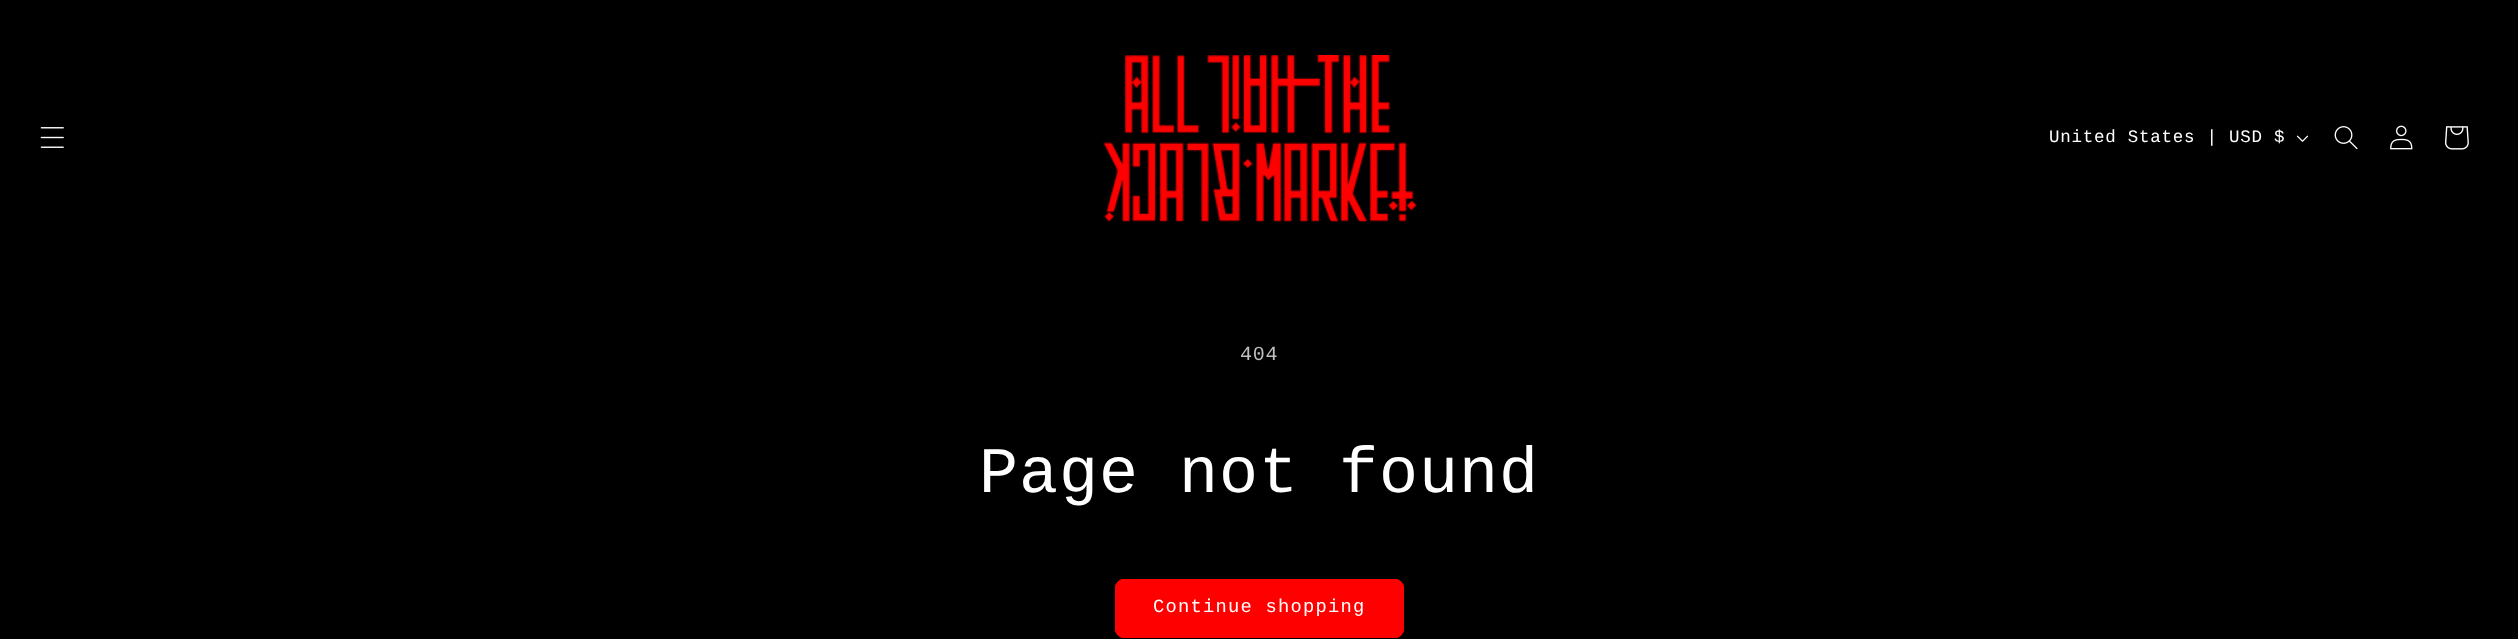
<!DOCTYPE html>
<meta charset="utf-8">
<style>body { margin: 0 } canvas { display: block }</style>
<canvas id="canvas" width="2518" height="639"></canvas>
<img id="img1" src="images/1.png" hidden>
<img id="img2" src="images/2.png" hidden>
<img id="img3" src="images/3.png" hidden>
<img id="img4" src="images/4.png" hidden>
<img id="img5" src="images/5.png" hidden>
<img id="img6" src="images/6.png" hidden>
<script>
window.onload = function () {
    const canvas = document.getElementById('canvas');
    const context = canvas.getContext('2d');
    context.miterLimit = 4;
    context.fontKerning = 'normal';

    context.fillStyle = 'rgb(0, 0, 0)';
    context.fillRect(0, 0, 2518, 639);
    context.drawImage(document.getElementById('img1'), 40, 127, 24, 21);
    context.drawImage(document.getElementById('img2'), 1103, 55, 314, 167);
    context.drawImage(document.getElementById('img3'), 2296, 135, 13, 7);
    context.drawImage(document.getElementById('img4'), 2334, 126, 24, 24);
    context.drawImage(document.getElementById('img5'), 2390, 125, 23, 25);
    context.drawImage(document.getElementById('img6'), 2445, 126, 24, 24);
    context.fillStyle = 'rgb(255, 0, 0)';
    context.beginPath();
    context.roundRect(1115, 579, 289, 59, 9);
    context.fill();
    context.beginPath();
    context.roundRect(1115.5, 579.5, 288, 58, 8.5);
    context.strokeStyle = 'rgb(255, 0, 0)';
    context.stroke();
    context.letterSpacing = '0.75px';
    context.font = '17.5px Liberation Mono';
    context.fillStyle = 'rgb(255, 255, 255)';
    context.fillText('United States | USD $', 2049, 142);
    context.font = '20px Liberation Mono';
    context.fillStyle = 'rgb(191, 191, 191)';
    context.fillText('404', 1240, 360);
    context.letterSpacing = '1px';
    context.font = '65px Liberation Mono';
    context.fillStyle = 'rgb(255, 255, 255)';
    context.fillText('Page not found', 979, 492);
    context.letterSpacing = '1.25px';
    context.font = '18.75px Liberation Mono';
    context.fillText('Continue shopping', 1153, 612);
};
</script>
